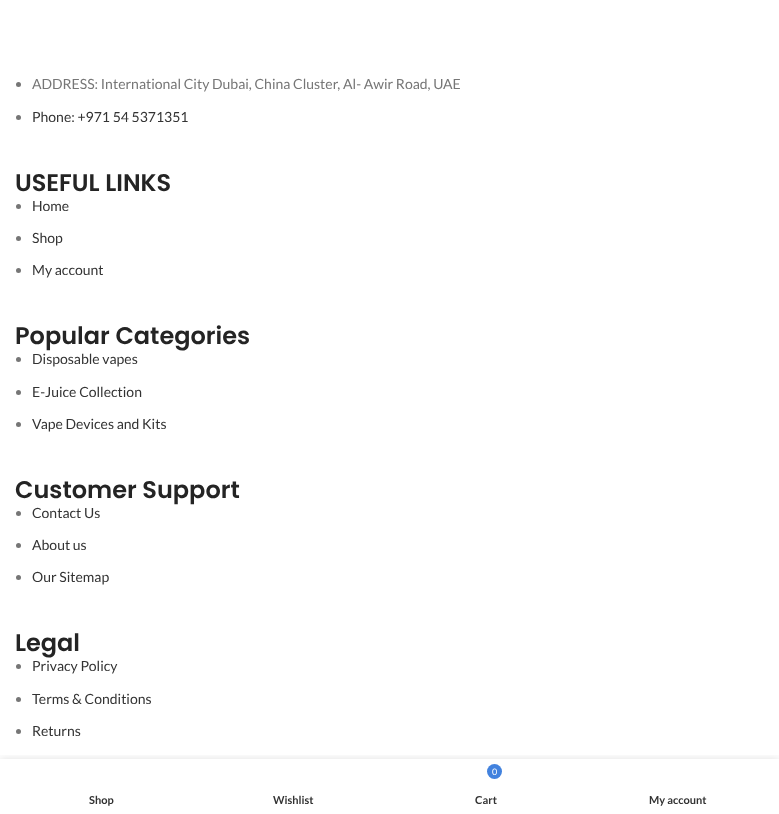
<!DOCTYPE html>
<meta charset="utf-8">
<style>body { margin: 0 } canvas { display: block }</style>
<canvas id="canvas" width="779" height="814"></canvas>
<script>
window.onload = function () {
    const canvas = document.getElementById('canvas');
    const context = canvas.getContext('2d');
    context.miterLimit = 4;
    context.fontKerning = 'normal';

    context.fillStyle = 'rgb(255, 255, 255)';
    context.fillRect(0, 0, 779, 814);
    context.fillStyle = 'rgb(118, 118, 118)';
    context.beginPath();
    context.arc(18.5, 84.5, 2.5, 0, 2 * Math.PI);
    context.fill();
    context.beginPath();
    context.arc(18.5, 117.5, 2.5, 0, 2 * Math.PI);
    context.fill();
    context.beginPath();
    context.arc(18.5, 206.5, 2.5, 0, 2 * Math.PI);
    context.fill();
    context.beginPath();
    context.arc(18.5, 238.5, 2.5, 0, 2 * Math.PI);
    context.fill();
    context.beginPath();
    context.arc(18.5, 270.5, 2.5, 0, 2 * Math.PI);
    context.fill();
    context.beginPath();
    context.arc(18.5, 359.5, 2.5, 0, 2 * Math.PI);
    context.fill();
    context.beginPath();
    context.arc(18.5, 392.5, 2.5, 0, 2 * Math.PI);
    context.fill();
    context.beginPath();
    context.arc(18.5, 424.5, 2.5, 0, 2 * Math.PI);
    context.fill();
    context.beginPath();
    context.arc(18.5, 513.5, 2.5, 0, 2 * Math.PI);
    context.fill();
    context.beginPath();
    context.arc(18.5, 545.5, 2.5, 0, 2 * Math.PI);
    context.fill();
    context.beginPath();
    context.arc(18.5, 577.5, 2.5, 0, 2 * Math.PI);
    context.fill();
    context.beginPath();
    context.arc(18.5, 666.5, 2.5, 0, 2 * Math.PI);
    context.fill();
    context.beginPath();
    context.arc(18.5, 699.5, 2.5, 0, 2 * Math.PI);
    context.fill();
    context.beginPath();
    context.arc(18.5, 731.5, 2.5, 0, 2 * Math.PI);
    context.fill();
    context.save();
    context.beginPath();
    context.rect(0, 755, 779, 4);
    context.clip();
    context.fillStyle = 'rgba(0, 0, 0, 0.12)';
    context.filter = 'blur(4.5px)';
    context.beginPath();
    context.rect(0, 759, 779, 55);
    context.fill();
    context.filter = 'none';
    context.restore();
    context.fillStyle = 'rgb(66, 130, 222)';
    context.beginPath();
    context.arc(494.5, 771.5, 7.5, 0, 2 * Math.PI);
    context.fill();
    context.font = '14px Lato';
    context.fillStyle = 'rgb(118, 118, 118)';
    context.fillText('ADDRESS: International City Dubai, China Cluster, Al- Awir Road, UAE', 32, 89);
    context.fillStyle = 'rgb(51, 51, 51)';
    context.fillText('Phone: +971 54 5371351', 32, 122);
    context.font = '600 24px Poppins';
    context.fillStyle = 'rgb(36, 36, 36)';
    context.fillText('USEFUL LINKS', 15, 191);
    context.font = '14px Lato';
    context.fillStyle = 'rgb(51, 51, 51)';
    context.fillText('Home', 32, 211);
    context.fillText('Shop', 32, 243);
    context.fillText('My account', 32, 275);
    context.font = '600 24px Poppins';
    context.fillStyle = 'rgb(36, 36, 36)';
    context.fillText('Popular Categories', 15, 344);
    context.font = '14px Lato';
    context.fillStyle = 'rgb(51, 51, 51)';
    context.fillText('Disposable vapes', 32, 364);
    context.fillText('E-Juice Collection', 32, 397);
    context.fillText('Vape Devices and Kits', 32, 429);
    context.font = '600 24px Poppins';
    context.fillStyle = 'rgb(36, 36, 36)';
    context.fillText('Customer Support', 15, 498);
    context.font = '14px Lato';
    context.fillStyle = 'rgb(51, 51, 51)';
    context.fillText('Contact Us', 32, 518);
    context.fillText('About us', 32, 550);
    context.fillText('Our Sitemap', 32, 582);
    context.font = '600 24px Poppins';
    context.fillStyle = 'rgb(36, 36, 36)';
    context.fillText('Legal', 15, 651);
    context.font = '14px Lato';
    context.fillStyle = 'rgb(51, 51, 51)';
    context.fillText('Privacy Policy', 32, 671);
    context.fillText('Terms & Conditions', 32, 704);
    context.fillText('Returns', 32, 736);
    context.font = 'bold 11px Lato';
    context.fillText('Shop', 89, 804);
    context.fillText('Wishlist', 273, 804);
    context.font = '9px Lato';
    context.fillStyle = 'rgb(255, 255, 255)';
    context.fillText('0', 492, 775);
    context.font = 'bold 11px Lato';
    context.fillStyle = 'rgb(51, 51, 51)';
    context.fillText('Cart', 475, 804);
    context.fillText('My account', 649, 804);
};
</script>
